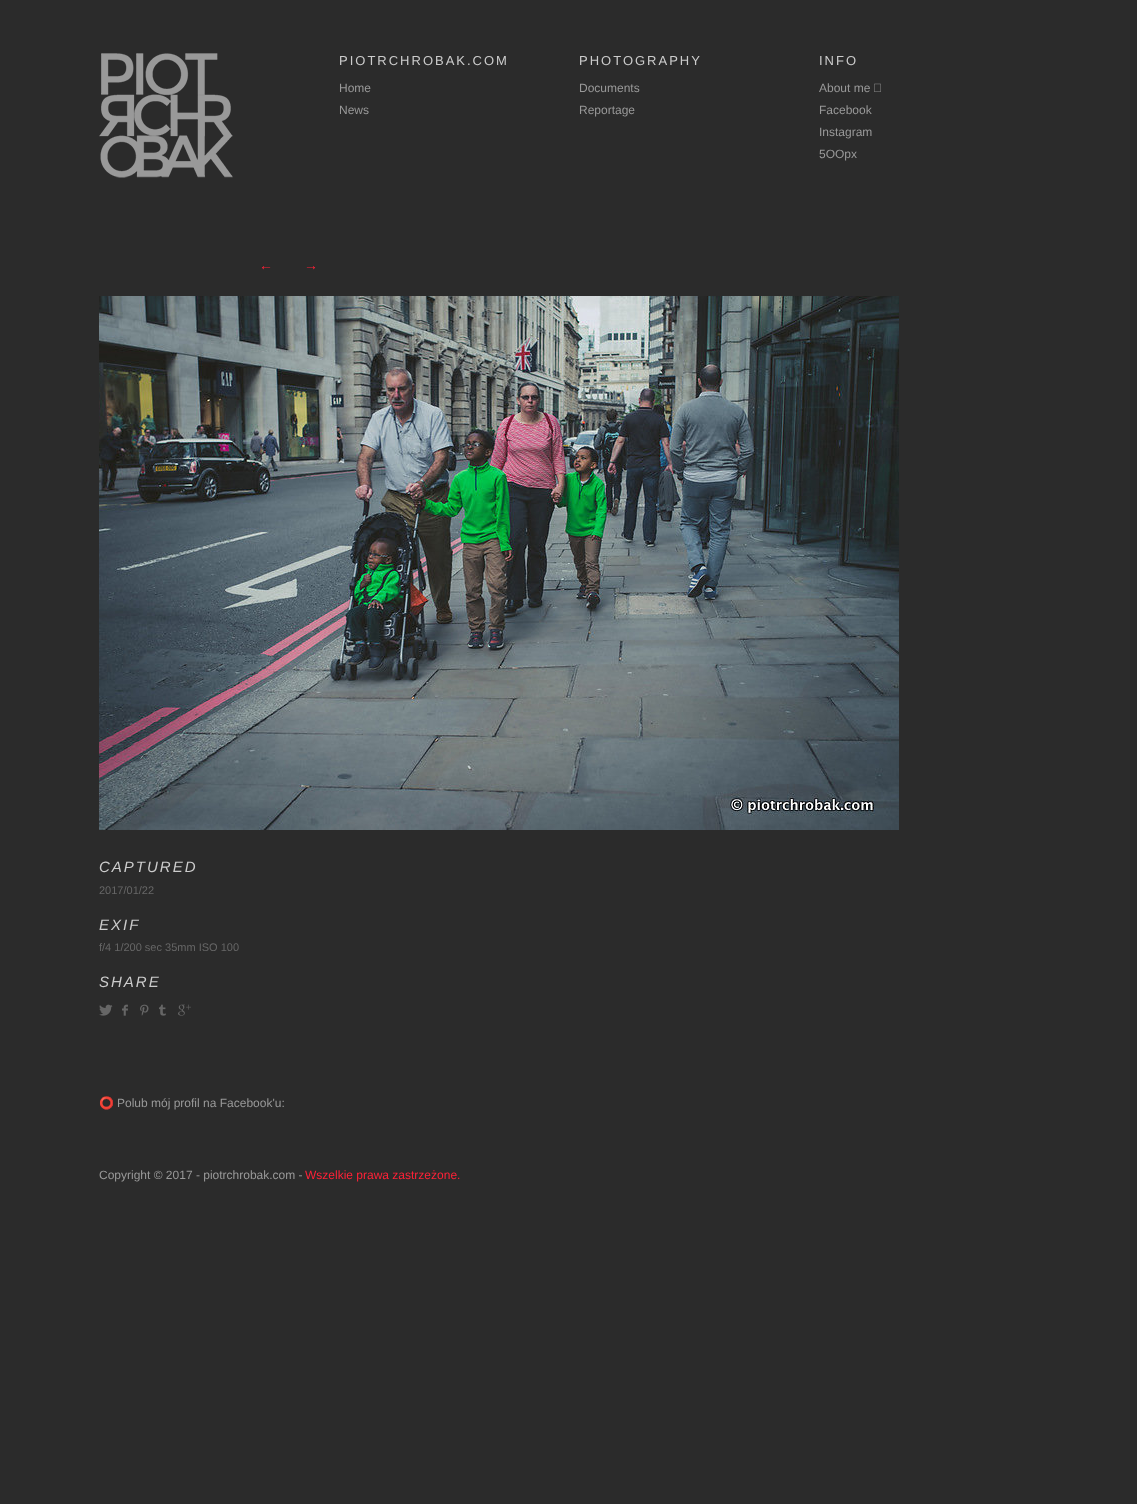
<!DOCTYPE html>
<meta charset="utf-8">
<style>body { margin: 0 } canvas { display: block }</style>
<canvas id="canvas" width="1137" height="1504"></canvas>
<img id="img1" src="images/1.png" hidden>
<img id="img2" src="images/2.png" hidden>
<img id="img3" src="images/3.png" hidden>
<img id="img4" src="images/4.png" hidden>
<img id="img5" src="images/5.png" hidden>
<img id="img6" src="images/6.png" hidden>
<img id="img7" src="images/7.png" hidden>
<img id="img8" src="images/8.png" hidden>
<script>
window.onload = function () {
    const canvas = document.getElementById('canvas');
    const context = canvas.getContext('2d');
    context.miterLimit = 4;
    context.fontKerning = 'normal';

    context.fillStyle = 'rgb(43, 43, 43)';
    context.fillRect(0, 0, 1137, 1504);
    context.drawImage(document.getElementById('img1'), 99, 53, 134, 125);
    context.drawImage(document.getElementById('img2'), 874, 83, 7, 9);
    context.drawImage(document.getElementById('img3'), 99, 296, 800, 534);
    context.drawImage(document.getElementById('img4'), 99, 1004, 14, 12);
    context.drawImage(document.getElementById('img5'), 122, 1004, 6, 12);
    context.drawImage(document.getElementById('img6'), 140, 1004, 9, 12);
    context.drawImage(document.getElementById('img7'), 159, 1004, 7, 12);
    context.drawImage(document.getElementById('img8'), 178, 1004, 13, 12);
    context.letterSpacing = '2px';
    context.font = '13px Liberation Sans';
    context.fillStyle = 'rgb(204, 204, 204)';
    context.fillText('PIOTRCHROBAK.COM', 339, 65);
    context.letterSpacing = '0px';
    context.font = '12px Liberation Sans';
    context.fillStyle = 'rgb(153, 153, 153)';
    context.fillText('Home', 339, 92);
    context.fillText('News', 339, 114);
    context.letterSpacing = '2px';
    context.font = '13px Liberation Sans';
    context.fillStyle = 'rgb(204, 204, 204)';
    context.fillText('PHOTOGRAPHY', 579, 65);
    context.letterSpacing = '0px';
    context.font = '12px Liberation Sans';
    context.fillStyle = 'rgb(153, 153, 153)';
    context.fillText('Documents', 579, 92);
    context.fillText('Reportage', 579, 114);
    context.letterSpacing = '2px';
    context.font = '13px Liberation Sans';
    context.fillStyle = 'rgb(204, 204, 204)';
    context.fillText('INFO', 819, 65);
    context.letterSpacing = '0px';
    context.font = '12px Liberation Sans';
    context.fillStyle = 'rgb(153, 153, 153)';
    context.fillText('About me', 819, 92);
    context.fillText('Facebook', 819, 114);
    context.fillText('Instagram', 819, 136);
    context.fillText('5OOpx', 819, 158);
    context.font = '14px Liberation Sans';
    context.fillStyle = 'rgb(255, 33, 55)';
    context.fillText('←', 259, 270);
    context.fillText('→', 304, 270);
    context.letterSpacing = '2px';
    context.font = 'italic 15px Liberation Sans';
    context.fillStyle = 'rgb(204, 204, 204)';
    context.fillText('CAPTURED', 99, 872);
    context.letterSpacing = '0px';
    context.font = '11px Liberation Sans';
    context.fillStyle = 'rgb(102, 102, 102)';
    context.fillText('2017/01/22', 99, 894);
    context.letterSpacing = '2px';
    context.font = 'italic 15px Liberation Sans';
    context.fillStyle = 'rgb(204, 204, 204)';
    context.fillText('EXIF', 99, 930);
    context.letterSpacing = '0px';
    context.font = '11px Liberation Sans';
    context.fillStyle = 'rgb(102, 102, 102)';
    context.fillText('f/4 1/200 sec 35mm ISO 100', 99, 951);
    context.letterSpacing = '2px';
    context.font = 'italic 15px Liberation Sans';
    context.fillStyle = 'rgb(204, 204, 204)';
    context.fillText('SHARE', 99, 987);
    context.letterSpacing = '0px';
    context.font = '12px Noto Color Emoji';
    context.fillStyle = 'rgb(153, 153, 153)';
    context.fillText('⭕️', 99, 1107);
    context.font = '12px Liberation Sans';
    context.fillText('Polub mój profil na Facebook\'u:', 117, 1107);
    context.fillText('Copyright © 2017 - piotrchrobak.com -', 99, 1179);
    context.fillStyle = 'rgb(255, 33, 55)';
    context.fillText('Wszelkie prawa zastrzeżone.', 305, 1179);
};
</script>
